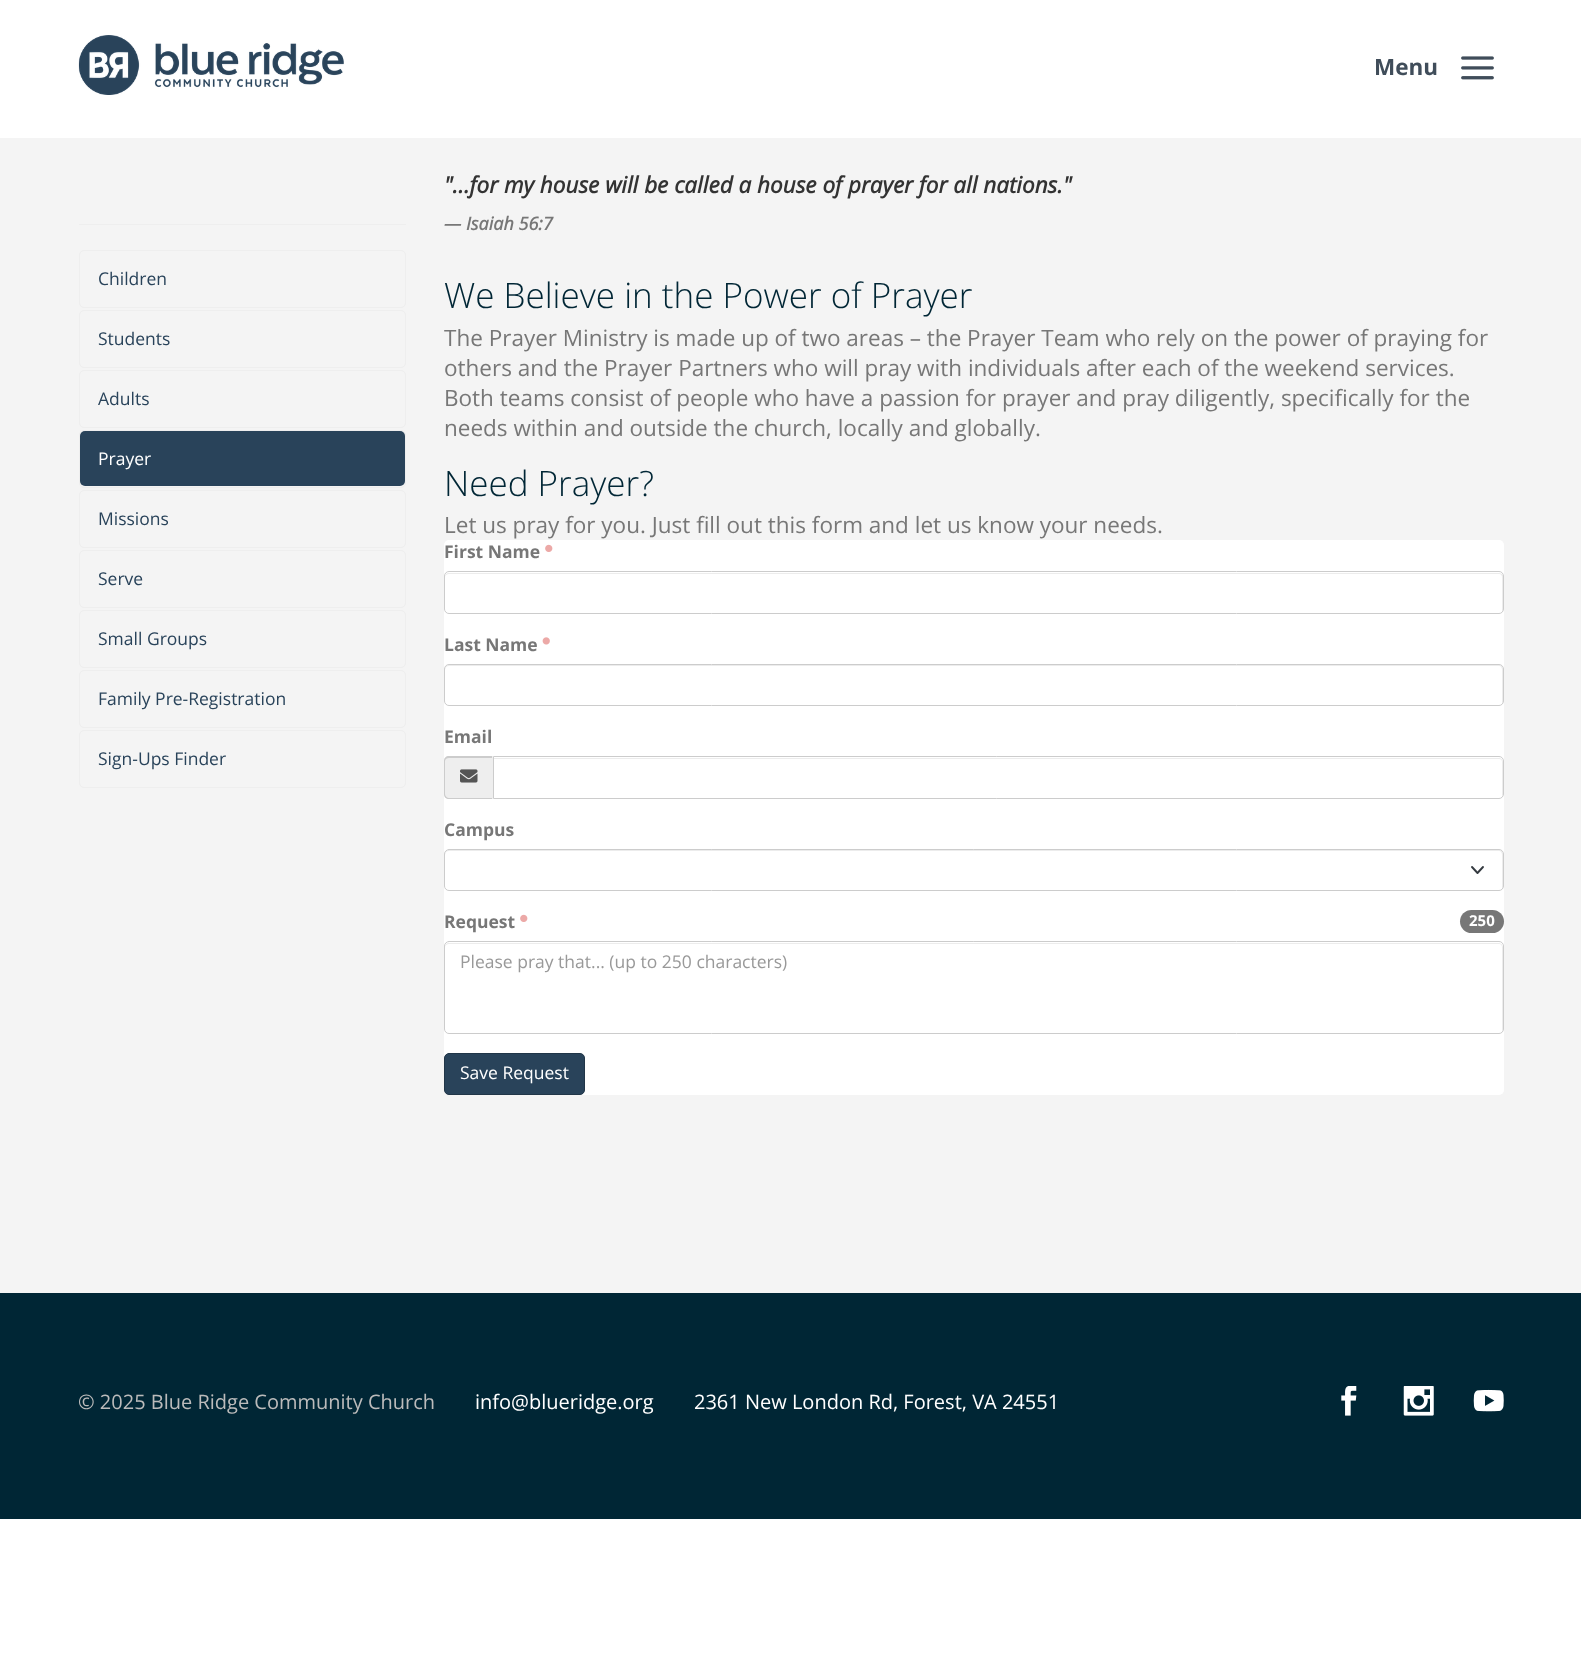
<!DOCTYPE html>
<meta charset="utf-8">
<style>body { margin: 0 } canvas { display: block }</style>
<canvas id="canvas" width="1581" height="1658"></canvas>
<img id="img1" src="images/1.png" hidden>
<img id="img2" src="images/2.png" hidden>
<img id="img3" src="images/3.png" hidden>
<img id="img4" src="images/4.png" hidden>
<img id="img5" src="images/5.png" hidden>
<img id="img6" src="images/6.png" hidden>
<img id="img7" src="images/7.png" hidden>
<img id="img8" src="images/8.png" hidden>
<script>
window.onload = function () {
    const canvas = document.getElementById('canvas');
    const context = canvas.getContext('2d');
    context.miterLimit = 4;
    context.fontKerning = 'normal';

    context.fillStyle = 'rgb(255, 255, 255)';
    context.fillRect(0, 0, 1581, 1658);
    context.drawImage(document.getElementById('img1'), 78, 35, 266, 60);
    context.drawImage(document.getElementById('img2'), 1461, 56, 33, 24);
    context.fillStyle = 'rgb(244, 244, 244)';
    context.fillRect(0, 138, 1581, 1155);
    context.fillStyle = 'rgb(238, 238, 238)';
    context.fillRect(79, 224, 327, 1);
    context.beginPath();
    context.roundRect(79.5, 250.5, 326, 57, 4.5);
    context.strokeStyle = 'rgb(238, 238, 238)';
    context.stroke();
    context.beginPath();
    context.roundRect(79.5, 310.5, 326, 57, 4.5);
    context.stroke();
    context.beginPath();
    context.roundRect(79.5, 370.5, 326, 57, 4.5);
    context.stroke();
    context.beginPath();
    context.roundRect(79.5, 430.5, 326, 57, 4.5);
    context.stroke();
    context.fillStyle = 'rgb(41, 67, 90)';
    context.beginPath();
    context.roundRect(80, 431, 325, 55, 5);
    context.fill();
    context.beginPath();
    context.roundRect(79.5, 490.5, 326, 57, 4.5);
    context.stroke();
    context.beginPath();
    context.roundRect(79.5, 550.5, 326, 57, 4.5);
    context.stroke();
    context.beginPath();
    context.roundRect(79.5, 610.5, 326, 57, 4.5);
    context.stroke();
    context.beginPath();
    context.roundRect(79.5, 670.5, 326, 57, 4.5);
    context.stroke();
    context.beginPath();
    context.roundRect(79.5, 730.5, 326, 57, 4.5);
    context.stroke();
    context.fillStyle = 'rgb(255, 255, 255)';
    context.beginPath();
    context.roundRect(444, 540, 1060, 555, 5);
    context.fill();
    context.drawImage(document.getElementById('img3'), 545, 544, 8, 8);
    context.fillStyle = 'rgb(236, 236, 236)';
    context.beginPath();
    context.moveTo(449, 574);
    context.lineTo(1499, 574);
    context.bezierCurveTo(1501, 574, 1502, 575, 1502, 578);
    context.lineTo(1502, 612);
    context.lineTo(1503, 610);
    context.lineTo(1503, 575);
    context.bezierCurveTo(1502, 574, 1501, 573, 1499, 573);
    context.lineTo(449, 573);
    context.bezierCurveTo(446, 573, 445, 575, 445, 578);
    context.bezierCurveTo(445, 575, 447, 574, 449, 574);
    context.closePath();
    context.fill();
    context.beginPath();
    context.roundRect(444.5, 571.5, 1059, 42, 4.5);
    context.strokeStyle = 'rgb(204, 204, 204)';
    context.stroke();
    context.drawImage(document.getElementById('img4'), 542, 637, 8, 8);
    context.beginPath();
    context.moveTo(449, 666);
    context.lineTo(1499, 666);
    context.bezierCurveTo(1501, 666, 1502, 668, 1502, 670);
    context.lineTo(1502, 704);
    context.bezierCurveTo(1503, 703, 1503, 702, 1503, 701);
    context.lineTo(1503, 669);
    context.bezierCurveTo(1503, 667, 1501, 665, 1499, 665);
    context.lineTo(449, 665);
    context.bezierCurveTo(447, 665, 445, 667, 445, 669);
    context.lineTo(445, 670);
    context.bezierCurveTo(445, 668, 447, 666, 449, 666);
    context.closePath();
    context.fill();
    context.beginPath();
    context.roundRect(444.5, 664.5, 1059, 41, 4.5);
    context.stroke();
    context.fillStyle = 'rgb(238, 238, 238)';
    context.beginPath();
    context.roundRect(444, 756, 49, 43, [5, 0, 0, 5]);
    context.fill();
    context.fillStyle = 'rgb(204, 204, 204)';
    context.beginPath();
    context.moveTo(449, 756);
    context.lineTo(492, 756);
    context.lineTo(492, 799);
    context.lineTo(449, 799);
    context.bezierCurveTo(446, 799, 444, 797, 444, 794);
    context.lineTo(444, 761);
    context.bezierCurveTo(444, 758, 446, 756, 449, 756);
    context.closePath();
    context.moveTo(449, 758);
    context.lineTo(492, 758);
    context.lineTo(492, 798);
    context.lineTo(449, 798);
    context.bezierCurveTo(447, 798, 445, 796, 445, 794);
    context.lineTo(445, 761);
    context.bezierCurveTo(445, 759, 447, 758, 449, 758);
    context.closePath();
    context.fill('evenodd');
    context.drawImage(document.getElementById('img5'), 460, 769, 18, 14);
    context.fillStyle = 'rgb(236, 236, 236)';
    context.beginPath();
    context.moveTo(494, 759);
    context.lineTo(1499, 759);
    context.bezierCurveTo(1501, 759, 1502, 760, 1502, 762);
    context.lineTo(1502, 797);
    context.bezierCurveTo(1502, 796, 1503, 795, 1503, 794);
    context.lineTo(1503, 762);
    context.bezierCurveTo(1503, 760, 1501, 758, 1499, 758);
    context.lineTo(494, 758);
    context.closePath();
    context.fill();
    context.beginPath();
    context.roundRect(493.5, 756.5, 1010, 42, [0, 4.5, 4.5, 0]);
    context.stroke();
    context.beginPath();
    context.moveTo(1472, 867);
    context.lineTo(1477.5, 873);
    context.lineTo(1483, 867);
    context.strokeStyle = 'rgb(52, 58, 64)';
    context.lineWidth = 1.9;
    context.lineCap = 'round';
    context.lineJoin = 'round';
    context.stroke();
    context.beginPath();
    context.moveTo(449, 851);
    context.lineTo(1499, 851);
    context.bezierCurveTo(1501, 851, 1502, 853, 1502, 855);
    context.lineTo(1502, 889);
    context.bezierCurveTo(1503, 888, 1503, 887, 1503, 886);
    context.lineTo(1503, 854);
    context.bezierCurveTo(1503, 852, 1501, 850, 1499, 850);
    context.lineTo(449, 850);
    context.bezierCurveTo(447, 850, 445, 852, 445, 854);
    context.lineTo(445, 855);
    context.bezierCurveTo(445, 853, 447, 851, 449, 851);
    context.closePath();
    context.fill();
    context.beginPath();
    context.roundRect(444.5, 849.5, 1059, 41, 4.5);
    context.strokeStyle = 'rgb(204, 204, 204)';
    context.lineWidth = 1;
    context.lineJoin = 'miter';
    context.stroke();
    context.drawImage(document.getElementById('img3'), 520, 914, 8, 8);
    context.beginPath();
    context.moveTo(449, 944);
    context.lineTo(1499, 944);
    context.bezierCurveTo(1501, 944, 1502, 945, 1502, 948);
    context.lineTo(1502, 1030);
    context.lineTo(1502, 1032);
    context.lineTo(1503, 1029);
    context.lineTo(1503, 947);
    context.lineTo(1502, 945);
    context.bezierCurveTo(1502, 944, 1500, 943, 1499, 943);
    context.lineTo(449, 943);
    context.bezierCurveTo(446, 943, 445, 945, 445, 948);
    context.bezierCurveTo(445, 945, 447, 944, 449, 944);
    context.closePath();
    context.fill();
    context.beginPath();
    context.roundRect(444.5, 941.5, 1059, 92, 4.5);
    context.stroke();
    context.fillStyle = 'rgb(119, 119, 119)';
    context.beginPath();
    context.roundRect(1460, 910, 44, 23, 11.5);
    context.fill();
    context.fillStyle = 'rgb(41, 67, 90)';
    context.beginPath();
    context.roundRect(444.5, 1053.5, 140, 41, 4.5);
    context.fill();
    context.strokeStyle = 'rgb(33, 54, 72)';
    context.stroke();
    context.fillStyle = 'rgb(0, 38, 53)';
    context.fillRect(0, 1293, 1581, 226);
    context.drawImage(document.getElementById('img6'), 1341, 1386, 16, 30);
    context.drawImage(document.getElementById('img7'), 1403, 1386, 31, 30);
    context.drawImage(document.getElementById('img8'), 1473, 1389, 31, 23);
    context.font = 'bold 22.5px Open Sans';
    context.fillStyle = 'rgb(64, 77, 90)';
    context.fillText('Menu', 1374, 75);
    context.font = '17.5px Open Sans';
    context.fillStyle = 'rgb(41, 67, 90)';
    context.fillText('Children', 98, 285);
    context.fillText('Students', 98, 345);
    context.fillText('Adults', 98, 405);
    context.fillStyle = 'rgb(255, 255, 255)';
    context.fillText('Prayer', 98, 465);
    context.fillStyle = 'rgb(41, 67, 90)';
    context.fillText('Missions', 98, 525);
    context.fillText('Serve', 98, 585);
    context.fillText('Small Groups', 98, 645);
    context.fillText('Family Pre-Registration', 98, 705);
    context.fillText('Sign-Ups Finder', 98, 765);
    context.font = 'italic bold 22.5px Open Sans';
    context.fillStyle = 'rgb(51, 51, 51)';
    context.fillText('"...for my house will be called a house of prayer for all nations."', 444, 193);
    context.font = 'italic bold 18px Open Sans';
    context.fillStyle = 'rgb(119, 119, 119)';
    context.fillText('— Isaiah 56:7', 444, 230);
    context.font = '300 35px Open Sans';
    context.fillStyle = 'rgb(0, 38, 53)';
    context.fillText('We Believe in the Power of Prayer', 444, 308);
    context.font = '22.5px Open Sans';
    context.fillStyle = 'rgb(119, 119, 119)';
    context.fillText('The Prayer Ministry is made up of two areas – the Prayer Team who rely on the power of praying for', 444, 346);
    context.fillText('others and the Prayer Partners who will pray with individuals after each of the weekend services.', 444, 376);
    context.fillText('Both teams consist of people who have a passion for prayer and pray diligently, specifically for the', 444, 406);
    context.fillText('needs within and outside the church, locally and globally.', 444, 436);
    context.font = '300 35px Open Sans';
    context.fillStyle = 'rgb(0, 38, 53)';
    context.fillText('Need Prayer?', 444, 496);
    context.font = '22.5px Open Sans';
    context.fillStyle = 'rgb(119, 119, 119)';
    context.fillText('Let us pray for you. Just fill out this form and let us know your needs.', 444, 533);
    context.font = 'bold 17.5px Open Sans';
    context.fillText('First Name', 444, 558);
    context.fillText('Last Name', 444, 651);
    context.fillText('Email', 444, 743);
    context.fillText('Campus', 444, 836);
    context.fillText('Request', 444, 928);
    context.font = '17.5px Open Sans';
    context.fillStyle = 'rgb(153, 153, 153)';
    context.fillText('Please pray that... (up to 250 characters)', 460, 968);
    context.font = 'bold 15px Open Sans';
    context.fillStyle = 'rgb(255, 255, 255)';
    context.fillText('250', 1469, 926);
    context.font = '17.5px Open Sans';
    context.fillText('Save Request', 460, 1079);
    context.font = '20px Open Sans';
    context.fillStyle = 'rgb(187, 187, 187)';
    context.fillText('© 2025 Blue Ridge Community Church', 78, 1409);
    context.fillStyle = 'rgb(255, 255, 255)';
    context.fillText('info@blueridge.org', 475, 1409);
    context.fillText('2361 New London Rd, Forest, VA 24551', 694, 1409);
};
</script>
